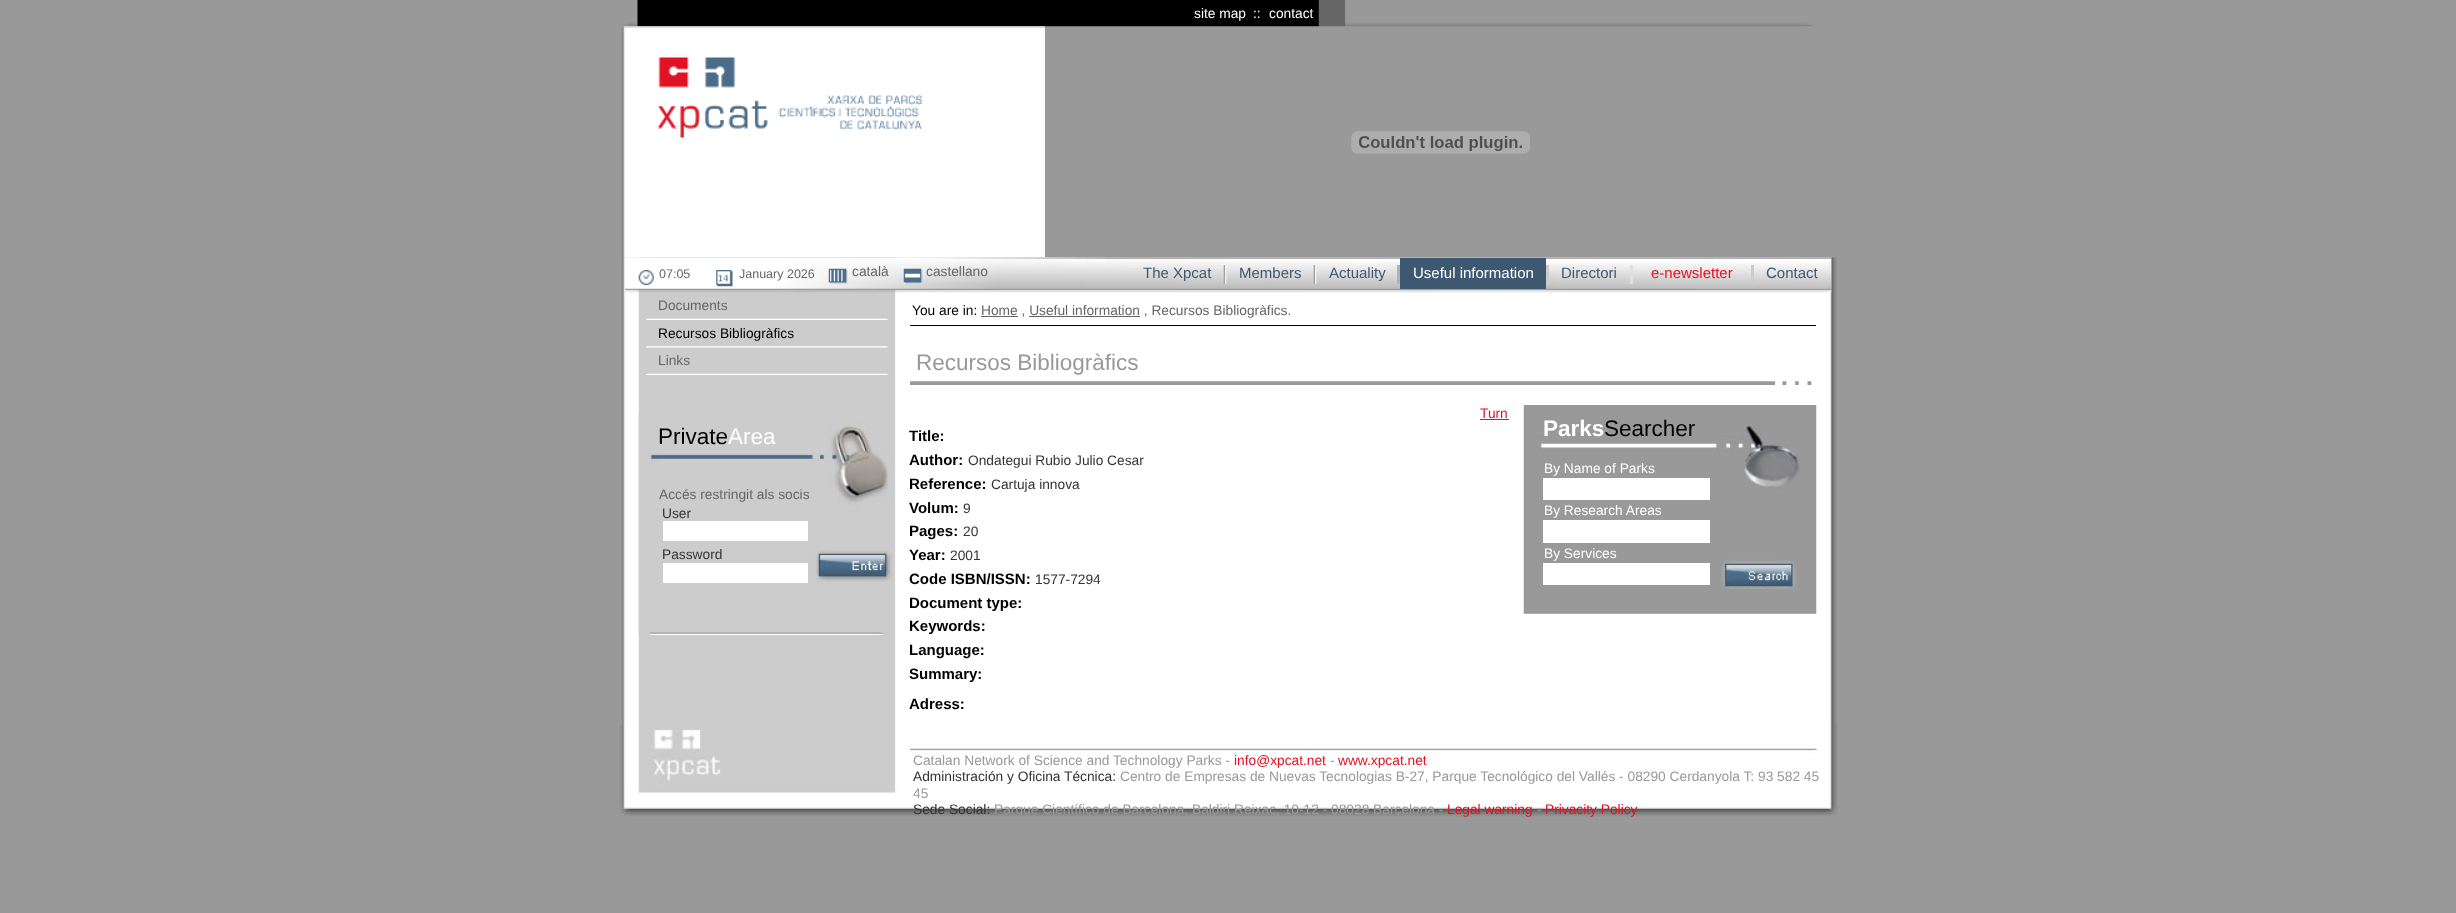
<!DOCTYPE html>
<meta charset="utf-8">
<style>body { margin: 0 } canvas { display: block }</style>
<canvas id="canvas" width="2456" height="913"></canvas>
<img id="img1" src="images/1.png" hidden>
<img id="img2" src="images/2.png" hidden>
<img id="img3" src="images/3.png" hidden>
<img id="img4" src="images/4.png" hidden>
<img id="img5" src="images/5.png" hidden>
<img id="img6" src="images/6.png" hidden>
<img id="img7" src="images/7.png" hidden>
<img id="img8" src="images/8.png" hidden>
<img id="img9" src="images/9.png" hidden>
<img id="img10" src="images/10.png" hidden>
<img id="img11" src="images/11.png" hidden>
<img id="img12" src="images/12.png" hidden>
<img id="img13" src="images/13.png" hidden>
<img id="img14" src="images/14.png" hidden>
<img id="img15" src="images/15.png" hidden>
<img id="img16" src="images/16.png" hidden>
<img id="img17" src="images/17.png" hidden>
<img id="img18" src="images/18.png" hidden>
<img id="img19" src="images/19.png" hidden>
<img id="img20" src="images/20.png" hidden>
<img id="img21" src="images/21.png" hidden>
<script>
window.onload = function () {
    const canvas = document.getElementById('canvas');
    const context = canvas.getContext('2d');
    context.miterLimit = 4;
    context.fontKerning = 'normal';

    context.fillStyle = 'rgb(153, 153, 153)';
    context.fillRect(0, 0, 2456, 913);
    context.drawImage(document.getElementById('img1'), 623, 0, 1190, 27);
    context.drawImage(document.getElementById('img2'), 623, 26, 422, 2);
    context.drawImage(document.getElementById('img3'), 621, 27, 424, 231);
    context.drawImage(document.getElementById('img4'), 658, 57, 265, 81);
    context.drawImage(document.getElementById('img5'), 1351, 131, 179, 23);
    context.drawImage(document.getElementById('img6'), 621, 257, 1216, 468);
    context.drawImage(document.getElementById('img7'), 625, 257, 1207, 36);
    context.drawImage(document.getElementById('img8'), 638, 270, 16, 15);
    context.drawImage(document.getElementById('img9'), 716, 270, 17, 17);
    context.drawImage(document.getElementById('img10'), 828, 268, 20, 16);
    context.drawImage(document.getElementById('img11'), 903, 268, 20, 16);
    context.drawImage(document.getElementById('img12'), 1223, 265, 4, 19);
    context.drawImage(document.getElementById('img13'), 1313, 265, 4, 19);
    context.fillStyle = 'rgb(178, 178, 178)';
    context.fillRect(1397, 265, 3, 19);
    context.fillStyle = 'rgb(62, 88, 113)';
    context.fillRect(1400, 258, 146, 31);
    context.fillStyle = 'rgb(204, 204, 204)';
    context.fillRect(1546, 265, 3, 19);
    context.fillStyle = 'rgb(223, 223, 223)';
    context.fillRect(1630, 265, 3, 19);
    context.fillStyle = 'rgb(204, 204, 204)';
    context.fillRect(1751, 265, 3, 19);
    context.fillRect(894, 293, 1, 82);
    context.drawImage(document.getElementById('img14'), 646, 318, 242, 2);
    context.drawImage(document.getElementById('img15'), 646, 346, 242, 2);
    context.drawImage(document.getElementById('img14'), 646, 373, 242, 2);
    context.drawImage(document.getElementById('img16'), 638, 412, 251, 223);
    context.fillStyle = 'rgb(255, 255, 255)';
    context.fillRect(663, 521, 145, 20);
    context.fillRect(663, 563, 145, 20);
    context.drawImage(document.getElementById('img17'), 815, 550, 78, 32);
    context.fillStyle = 'rgb(0, 0, 0)';
    context.fillRect(910, 325, 906, 1);
    context.fillStyle = 'rgb(102, 102, 102)';
    context.fillRect(981, 316, 37, 1);
    context.fillRect(1029, 316, 111, 1);
    context.drawImage(document.getElementById('img18'), 910, 381, 902, 4);
    context.fillStyle = 'rgb(224, 18, 35)';
    context.fillRect(1480, 419, 29, 1);
    context.drawImage(document.getElementById('img19'), 1523, 405, 294, 209);
    context.fillStyle = 'rgb(255, 255, 255)';
    context.fillRect(1543, 478, 167, 22);
    context.fillRect(1543, 520, 167, 23);
    context.fillRect(1543, 563, 167, 22);
    context.drawImage(document.getElementById('img20'), 1721, 559, 77, 30);
    context.drawImage(document.getElementById('img21'), 620, 725, 1218, 92);
    context.font = '13.75px Liberation Sans';
    context.fillText('site map', 1194, 18);
    context.fillText('::', 1253, 18);
    context.fillText('contact', 1269, 18);
    context.font = '12.5px Liberation Sans';
    context.fillStyle = 'rgb(102, 102, 102)';
    context.fillText('07:05', 659, 278);
    context.fillText('January 2026', 739, 278);
    context.font = '13.75px Liberation Sans';
    context.fillText('català', 852, 276);
    context.fillText('castellano', 926, 276);
    context.font = '15px Liberation Sans';
    context.fillStyle = 'rgb(62, 88, 113)';
    context.fillText('The Xpcat', 1143, 278);
    context.fillText('Members', 1239, 278);
    context.fillText('Actuality', 1329, 278);
    context.fillStyle = 'rgb(255, 255, 255)';
    context.fillText('Useful information', 1413, 278);
    context.fillStyle = 'rgb(62, 88, 113)';
    context.fillText('Directori', 1561, 278);
    context.fillStyle = 'rgb(224, 18, 35)';
    context.fillText('e-newsletter', 1651, 278);
    context.fillStyle = 'rgb(62, 88, 113)';
    context.fillText('Contact', 1766, 278);
    context.font = '13.75px Liberation Sans';
    context.fillStyle = 'rgb(102, 102, 102)';
    context.fillText('Documents', 658, 310);
    context.fillStyle = 'rgb(0, 0, 0)';
    context.fillText('Recursos Bibliogràfics', 658, 338);
    context.fillStyle = 'rgb(102, 102, 102)';
    context.fillText('Links', 658, 365);
    context.font = '22.5px Liberation Sans';
    context.fillStyle = 'rgb(0, 0, 0)';
    context.fillText('Private', 658, 444);
    context.fillStyle = 'rgb(255, 255, 255)';
    context.fillText('Area', 728, 444);
    context.font = '13.75px Liberation Sans';
    context.fillStyle = 'rgb(102, 102, 102)';
    context.fillText('Accés restringit als socis', 659, 499);
    context.fillStyle = 'rgb(51, 51, 51)';
    context.fillText('User', 662, 518);
    context.fillText('Password', 662, 559);
    context.fillStyle = 'rgb(0, 0, 0)';
    context.fillText('You are in:', 912, 315);
    context.fillStyle = 'rgb(102, 102, 102)';
    context.fillText('Home , Useful information , Recursos Bibliogràfics.', 981, 315);
    context.font = '22.5px Liberation Sans';
    context.fillStyle = 'rgb(153, 153, 153)';
    context.fillText('Recursos Bibliogràfics', 916, 370);
    context.font = '13.75px Liberation Sans';
    context.fillStyle = 'rgb(224, 18, 35)';
    context.fillText('Turn', 1480, 418);
    context.font = 'bold 15px Liberation Sans';
    context.fillStyle = 'rgb(0, 0, 0)';
    context.fillText('Title:', 909, 441);
    context.fillText('Author:', 909, 465);
    context.font = '13.75px Liberation Sans';
    context.fillStyle = 'rgb(51, 51, 51)';
    context.fillText('Ondategui Rubio Julio Cesar', 968, 465);
    context.font = 'bold 15px Liberation Sans';
    context.fillStyle = 'rgb(0, 0, 0)';
    context.fillText('Reference:', 909, 489);
    context.font = '13.75px Liberation Sans';
    context.fillStyle = 'rgb(51, 51, 51)';
    context.fillText('Cartuja innova', 991, 489);
    context.font = 'bold 15px Liberation Sans';
    context.fillStyle = 'rgb(0, 0, 0)';
    context.fillText('Volum:', 909, 513);
    context.font = '13.75px Liberation Sans';
    context.fillStyle = 'rgb(51, 51, 51)';
    context.fillText('9', 963, 513);
    context.font = 'bold 15px Liberation Sans';
    context.fillStyle = 'rgb(0, 0, 0)';
    context.fillText('Pages:', 909, 536);
    context.font = '13.75px Liberation Sans';
    context.fillStyle = 'rgb(51, 51, 51)';
    context.fillText('20', 963, 536);
    context.font = 'bold 15px Liberation Sans';
    context.fillStyle = 'rgb(0, 0, 0)';
    context.fillText('Year:', 909, 560);
    context.font = '13.75px Liberation Sans';
    context.fillStyle = 'rgb(51, 51, 51)';
    context.fillText('2001', 950, 560);
    context.font = 'bold 15px Liberation Sans';
    context.fillStyle = 'rgb(0, 0, 0)';
    context.fillText('Code ISBN/ISSN:', 909, 584);
    context.font = '13.75px Liberation Sans';
    context.fillStyle = 'rgb(51, 51, 51)';
    context.fillText('1577-7294', 1035, 584);
    context.font = 'bold 15px Liberation Sans';
    context.fillStyle = 'rgb(0, 0, 0)';
    context.fillText('Document type:', 909, 608);
    context.fillText('Keywords:', 909, 631);
    context.fillText('Language:', 909, 655);
    context.fillText('Summary:', 909, 679);
    context.fillText('Adress:', 909, 709);
    context.font = 'bold 22.5px Liberation Sans';
    context.fillStyle = 'rgb(255, 255, 255)';
    context.fillText('Parks', 1543, 436);
    context.font = '22.5px Liberation Sans';
    context.fillStyle = 'rgb(0, 0, 0)';
    context.fillText('Searcher', 1604, 436);
    context.font = '13.75px Liberation Sans';
    context.fillStyle = 'rgb(255, 255, 255)';
    context.fillText('By Name of Parks', 1544, 473);
    context.fillText('By Research Areas', 1544, 515);
    context.fillText('By Services', 1544, 558);
    context.fillStyle = 'rgb(153, 153, 153)';
    context.fillText('Catalan Network of Science and Technology Parks -', 913, 765);
    context.fillStyle = 'rgb(224, 18, 35)';
    context.fillText('info@xpcat.net', 1234, 765);
    context.fillStyle = 'rgb(153, 153, 153)';
    context.fillText('-', 1330, 765);
    context.fillStyle = 'rgb(224, 18, 35)';
    context.fillText('www.xpcat.net', 1338, 765);
    context.fillStyle = 'rgb(51, 51, 51)';
    context.fillText('Administración y Oficina Técnica:', 913, 781);
    context.fillStyle = 'rgb(153, 153, 153)';
    context.fillText('Centro de Empresas de Nuevas Tecnologias B-27, Parque Tecnológico del Vallés - 08290 Cerdanyola T: 93 582 45', 1120, 781);
    context.fillText('45', 913, 798);
    context.fillStyle = 'rgb(51, 51, 51)';
    context.fillText('Sede Social:', 913, 814);
    context.fillStyle = 'rgb(153, 153, 153)';
    context.fillText('Parque Científico de Barcelona, Baldiri Reixac, 10-12 - 08028 Barcelona -', 994, 814);
    context.fillStyle = 'rgb(224, 18, 35)';
    context.fillText('Legal warning', 1447, 814);
    context.fillStyle = 'rgb(153, 153, 153)';
    context.fillText('-', 1537, 814);
    context.fillStyle = 'rgb(224, 18, 35)';
    context.fillText('Privacity Policy', 1545, 814);
};
</script>
